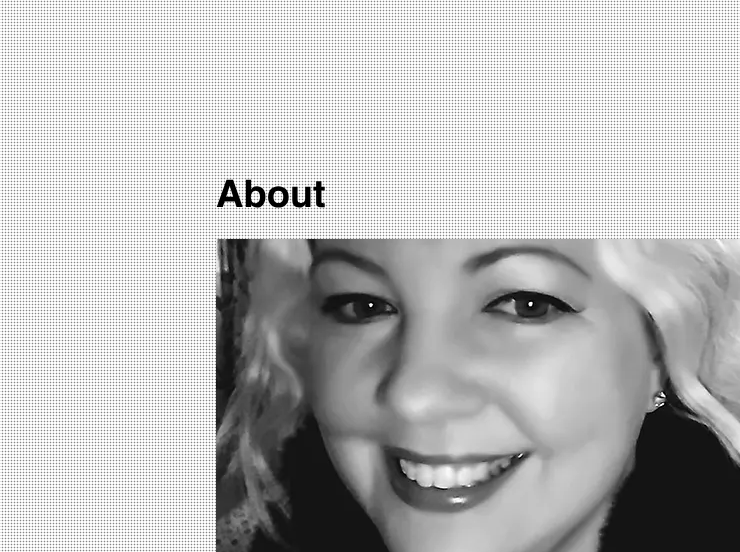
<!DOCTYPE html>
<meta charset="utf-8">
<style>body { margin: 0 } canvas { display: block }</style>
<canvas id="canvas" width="740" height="552"></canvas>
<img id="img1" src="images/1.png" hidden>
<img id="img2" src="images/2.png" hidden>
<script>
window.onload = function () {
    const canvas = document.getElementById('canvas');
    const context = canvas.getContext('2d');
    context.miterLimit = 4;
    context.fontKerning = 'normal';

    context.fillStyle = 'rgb(255, 255, 255)';
    context.fillRect(0, 0, 740, 552);
    context.drawImage(document.getElementById('img1'), 0, 0, 740, 552);
    context.drawImage(document.getElementById('img2'), 216, 239, 524, 313);
    context.font = 'bold 38px helvetica';
    context.fillStyle = 'rgb(0, 0, 0)';
    context.fillText('About', 216, 207);
};
</script>
